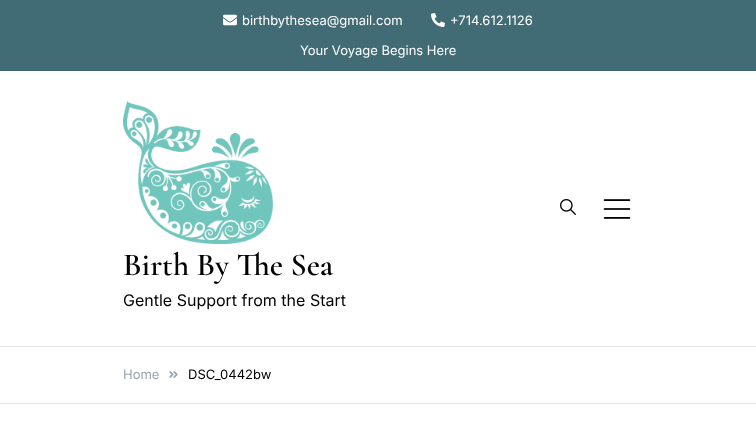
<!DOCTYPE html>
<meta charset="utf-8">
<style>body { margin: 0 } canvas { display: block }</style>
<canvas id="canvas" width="756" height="438"></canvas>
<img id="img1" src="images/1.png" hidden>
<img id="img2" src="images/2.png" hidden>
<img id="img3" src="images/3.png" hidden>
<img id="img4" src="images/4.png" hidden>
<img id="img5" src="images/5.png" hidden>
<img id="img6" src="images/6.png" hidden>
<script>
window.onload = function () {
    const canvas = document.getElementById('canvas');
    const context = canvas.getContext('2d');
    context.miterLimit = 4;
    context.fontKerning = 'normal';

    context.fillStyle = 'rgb(255, 255, 255)';
    context.fillRect(0, 0, 756, 438);
    context.fillStyle = 'rgb(65, 107, 117)';
    context.fillRect(0, 0, 756, 70);
    context.fillStyle = 'rgb(62, 102, 111)';
    context.fillRect(0, 70, 756, 1);
    context.drawImage(document.getElementById('img1'), 223, 14, 14, 12);
    context.drawImage(document.getElementById('img2'), 431, 13, 14, 14);
    context.fillStyle = 'rgb(228, 230, 234)';
    context.fillRect(0, 346, 756, 1);
    context.drawImage(document.getElementById('img3'), 560, 199, 16, 16);
    context.drawImage(document.getElementById('img4'), 603, 199, 28, 20);
    context.drawImage(document.getElementById('img5'), 123, 101, 150, 143);
    context.fillRect(0, 403, 756, 1);
    context.drawImage(document.getElementById('img6'), 169, 371, 9, 7);
    context.font = '13px Inter';
    context.fillStyle = 'rgb(255, 255, 255)';
    context.fillText('birthbythesea@gmail.com', 242, 25);
    context.fillText('+714.612.1126', 450, 25);
    context.fillText('Your Voyage Begins Here', 300, 55);
    context.font = '600 32px Cormorant Garamond';
    context.fillStyle = 'rgb(0, 0, 0)';
    context.fillText('Birth By The Sea', 123, 275);
    context.font = '16px Inter';
    context.fillText('Gentle Support from the Start', 123, 306);
    context.font = '13px Inter';
    context.fillStyle = 'rgb(151, 165, 177)';
    context.fillText('Home', 123, 379);
    context.fillStyle = 'rgb(0, 0, 0)';
    context.fillText('DSC_0442bw', 188, 379);
};
</script>
